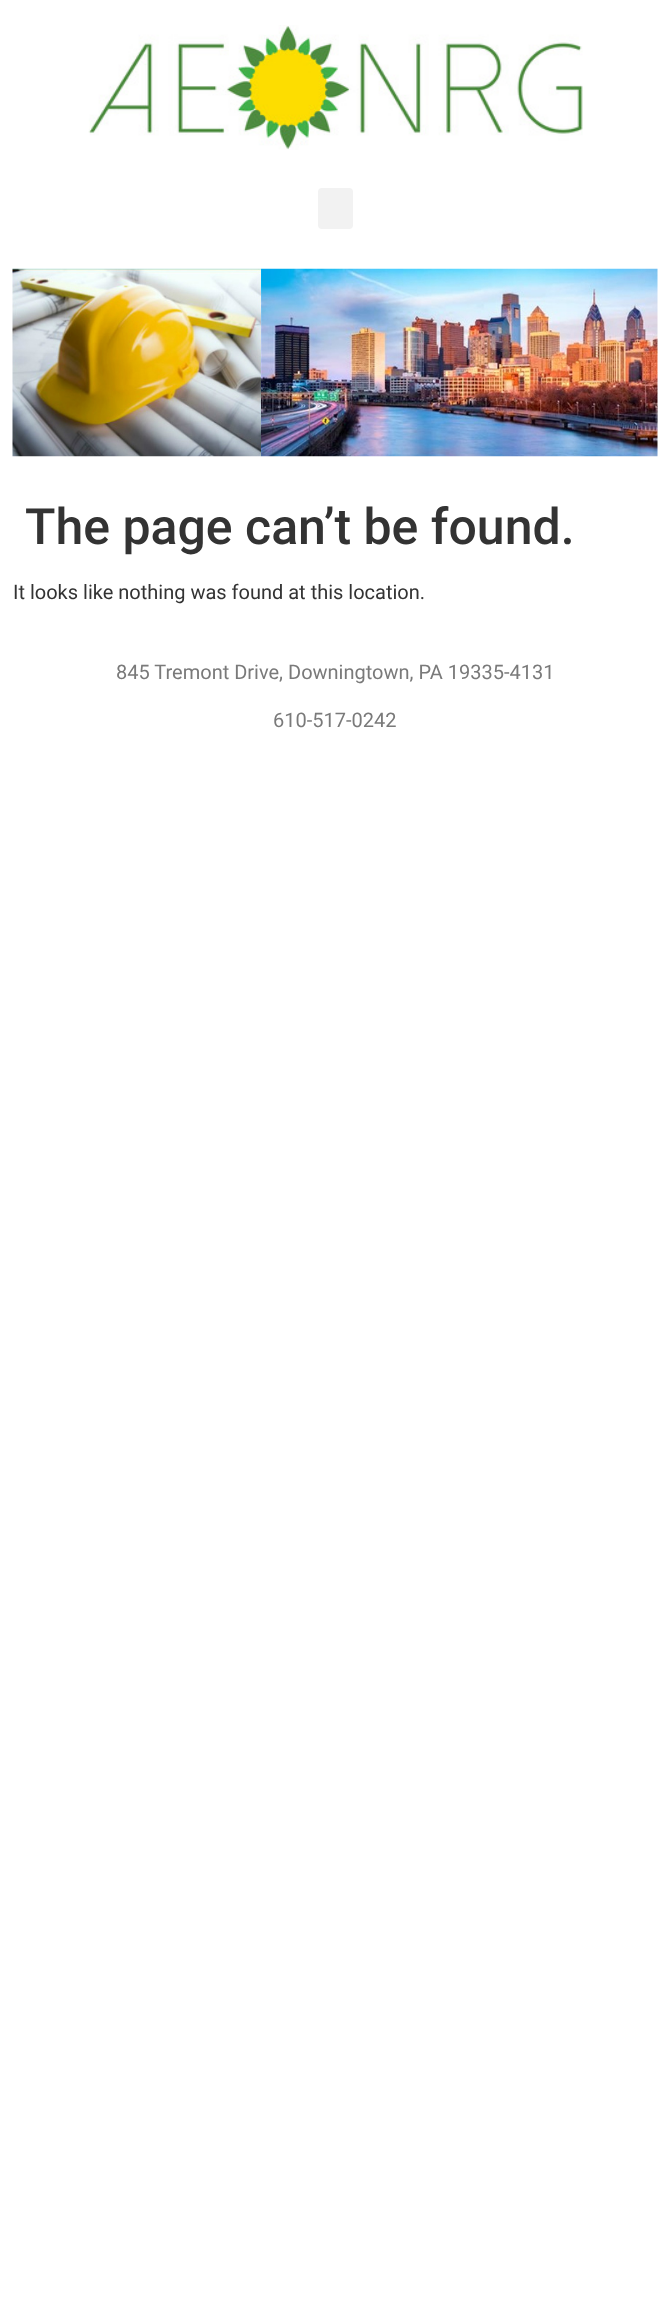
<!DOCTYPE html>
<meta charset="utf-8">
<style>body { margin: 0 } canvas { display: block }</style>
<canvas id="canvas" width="669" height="2310"></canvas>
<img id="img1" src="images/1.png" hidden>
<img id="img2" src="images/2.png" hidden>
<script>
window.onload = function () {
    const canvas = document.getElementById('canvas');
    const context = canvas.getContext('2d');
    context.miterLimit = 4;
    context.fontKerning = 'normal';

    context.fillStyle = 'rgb(255, 255, 255)';
    context.fillRect(0, 0, 669, 2310);
    context.drawImage(document.getElementById('img1'), 88, 25, 495, 125);
    context.fillStyle = 'rgb(242, 242, 242)';
    context.beginPath();
    context.roundRect(318, 188, 35, 41, 4);
    context.fill();
    context.drawImage(document.getElementById('img2'), 12, 268, 646, 189);
    context.font = '500 50px Roboto';
    context.fillStyle = 'rgb(51, 51, 51)';
    context.fillText('The page can’t be found.', 25, 544);
    context.font = '20px Roboto';
    context.fillText('It looks like nothing was found at this location.', 13, 599);
    context.fillStyle = 'rgb(122, 122, 122)';
    context.fillText('845 Tremont Drive, Downingtown, PA 19335-4131', 116, 679);
    context.fillText('610-517-0242', 273, 727);
};
</script>
